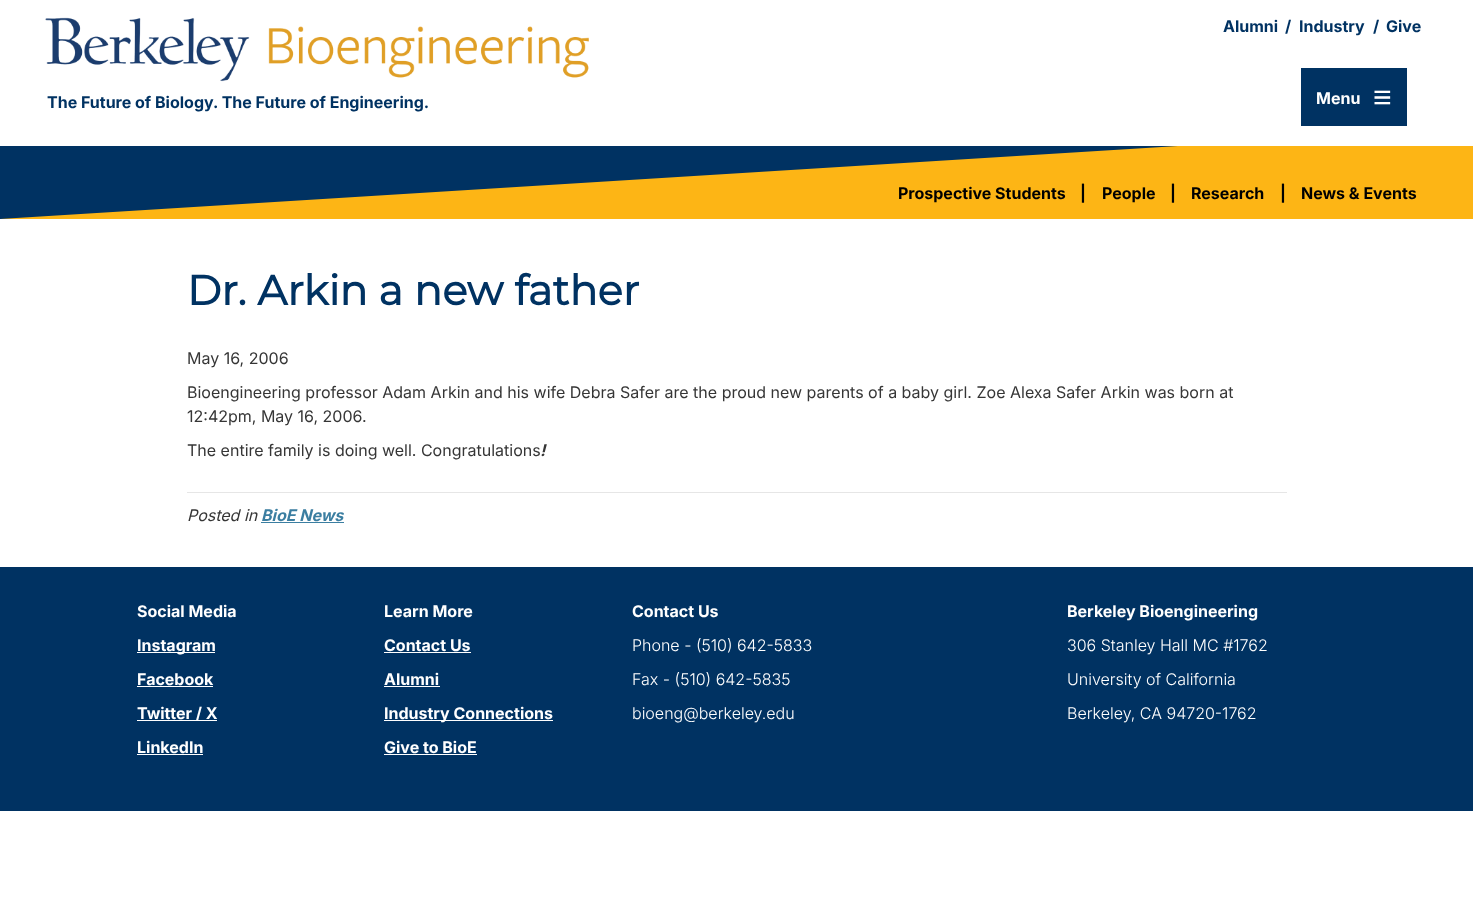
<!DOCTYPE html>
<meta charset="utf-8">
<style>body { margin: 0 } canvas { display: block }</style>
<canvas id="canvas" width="1473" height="919"></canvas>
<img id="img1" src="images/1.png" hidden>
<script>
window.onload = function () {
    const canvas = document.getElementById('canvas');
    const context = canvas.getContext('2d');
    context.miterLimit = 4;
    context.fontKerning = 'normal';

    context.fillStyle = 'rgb(255, 255, 255)';
    context.fillRect(0, 0, 1473, 919);
    context.drawImage(document.getElementById('img1'), 45, 17, 544, 65);
    context.fillStyle = 'rgb(0, 50, 98)';
    context.fillRect(1301, 68, 106, 58);
    context.fillStyle = 'rgb(253, 181, 21)';
    context.fillRect(0, 146, 1473, 73);
    context.fillStyle = 'rgb(0, 50, 98)';
    context.beginPath();
    context.moveTo(0, 219);
    context.lineTo(1178, 146);
    context.lineTo(0, 146);
    context.closePath();
    context.fill();
    context.fillStyle = 'rgb(230, 230, 230)';
    context.fillRect(187, 492, 1100, 1);
    context.fillStyle = 'rgb(59, 126, 161)';
    context.fillRect(261, 522, 83, 1);
    context.fillStyle = 'rgb(0, 50, 98)';
    context.fillRect(0, 567, 1473, 244);
    context.fillStyle = 'rgb(255, 255, 255)';
    context.fillRect(137, 652, 78, 1);
    context.fillRect(137, 686, 76, 1);
    context.fillRect(137, 720, 80, 1);
    context.fillRect(137, 754, 66, 1);
    context.fillRect(384, 652, 87, 1);
    context.fillRect(384, 686, 56, 1);
    context.fillRect(384, 720, 169, 1);
    context.fillRect(384, 754, 93, 1);
    context.font = 'bold 16px Inter';
    context.fillStyle = 'rgb(0, 50, 98)';
    context.fillText('The Future of Biology. The Future of Engineering.', 47, 108);
    context.fillText('Alumni', 1223, 32);
    context.fillText('/', 1285, 32);
    context.fillText('Industry', 1299, 32);
    context.fillText('/', 1373, 32);
    context.fillText('Give', 1386, 32);
    context.fillStyle = 'rgb(255, 255, 255)';
    context.fillText('Menu', 1316, 104);
    context.font = '32px Liberation Sans';
    context.fillText('≡', 1373, 108);
    context.font = 'bold 16px Inter';
    context.fillStyle = 'rgb(0, 0, 0)';
    context.fillText('Prospective Students', 898, 199);
    context.fillText('|', 1080, 199);
    context.fillText('People', 1102, 199);
    context.fillText('|', 1170, 199);
    context.fillText('Research', 1191, 199);
    context.fillText('|', 1280, 199);
    context.fillText('News & Events', 1301, 199);
    context.font = 'bold 41.6px Montserrat';
    context.fillStyle = 'rgb(0, 50, 98)';
    context.fillText('Dr. Arkin a new father', 187, 305);
    context.font = '16px Inter';
    context.fillStyle = 'rgb(54, 54, 54)';
    context.fillText('May 16, 2006', 187, 364);
    context.fillText('Bioengineering professor Adam Arkin and his wife Debra Safer are the proud new parents of a baby girl. Zoe Alexa Safer Arkin was born at', 187, 398);
    context.fillText('12:42pm, May 16, 2006.', 187, 422);
    context.fillText('The entire family is doing well. Congratulations', 187, 456);
    context.font = 'italic bold 16px Inter';
    context.fillText('!', 540, 456);
    context.font = 'italic 16px Inter';
    context.fillText('Posted in', 187, 521);
    context.font = 'italic bold 16px Inter';
    context.fillStyle = 'rgb(59, 126, 161)';
    context.fillText('BioE News', 261, 521);
    context.font = 'bold 16px Inter';
    context.fillStyle = 'rgb(255, 255, 255)';
    context.fillText('Social Media', 137, 617);
    context.fillText('Instagram', 137, 651);
    context.fillText('Facebook', 137, 685);
    context.fillText('Twitter / X', 137, 719);
    context.fillText('LinkedIn', 137, 753);
    context.fillText('Learn More', 384, 617);
    context.fillText('Contact Us', 384, 651);
    context.fillText('Alumni', 384, 685);
    context.fillText('Industry Connections', 384, 719);
    context.fillText('Give to BioE', 384, 753);
    context.fillText('Contact Us', 632, 617);
    context.font = '300 16px Inter';
    context.fillText('Phone - (510) 642-5833', 632, 651);
    context.fillText('Fax - (510) 642-5835', 632, 685);
    context.fillText('bioeng@berkeley.edu', 632, 719);
    context.font = 'bold 16px Inter';
    context.fillText('Berkeley Bioengineering', 1067, 617);
    context.font = '300 16px Inter';
    context.fillText('306 Stanley Hall MC #1762', 1067, 651);
    context.fillText('University of California', 1067, 685);
    context.fillText('Berkeley, CA 94720-1762', 1067, 719);
};
</script>
